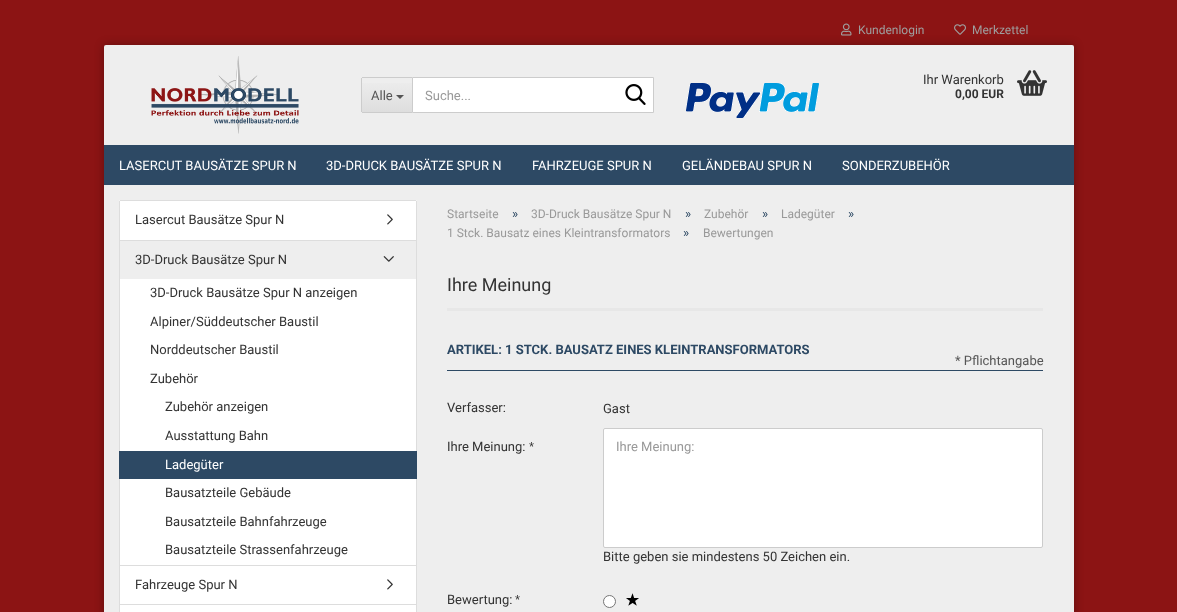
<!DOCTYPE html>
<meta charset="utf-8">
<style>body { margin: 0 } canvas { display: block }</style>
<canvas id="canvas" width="1177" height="612"></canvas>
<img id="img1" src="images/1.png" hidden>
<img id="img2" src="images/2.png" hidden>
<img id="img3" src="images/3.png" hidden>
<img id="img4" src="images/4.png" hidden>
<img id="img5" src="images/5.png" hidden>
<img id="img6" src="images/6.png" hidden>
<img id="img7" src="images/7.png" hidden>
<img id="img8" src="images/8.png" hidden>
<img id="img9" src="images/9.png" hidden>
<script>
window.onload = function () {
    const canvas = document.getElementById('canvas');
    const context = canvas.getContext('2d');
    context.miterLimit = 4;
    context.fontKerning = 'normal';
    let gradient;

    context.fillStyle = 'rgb(140, 20, 20)';
    context.fillRect(0, 0, 1177, 612);
    context.fillStyle = 'rgba(0, 0, 0, 0.3)';
    context.filter = 'blur(5px)';
    context.beginPath();
    context.roundRect(104, 45, 970, 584, 2);
    context.fill();
    context.filter = 'none';
    context.fillStyle = 'rgb(238, 238, 238)';
    context.beginPath();
    context.roundRect(104, 45, 970, 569, 2);
    context.fill();
    context.drawImage(document.getElementById('img1'), 841, 23, 11, 13);
    context.drawImage(document.getElementById('img2'), 954, 24, 12, 11);
    context.drawImage(document.getElementById('img3'), 151, 56, 148, 78);
    gradient = context.createLinearGradient(387, 78, 387, 112);
    gradient.addColorStop(0, 'rgb(238, 238, 238)');
    gradient.addColorStop(1, 'rgb(222, 222, 222)');
    context.fillStyle = gradient;
    context.fillRect(362, 83, 50, 29);
    context.fillStyle = 'rgb(204, 204, 204)';
    context.fillRect(362, 77, 50, 1);
    context.fillRect(362, 112, 50, 1);
    context.fillRect(361, 78, 1, 34);
    context.fillStyle = 'rgb(85, 85, 85)';
    context.beginPath();
    context.moveTo(396, 95);
    context.lineTo(404, 95);
    context.lineTo(400, 99);
    context.closePath();
    context.fill();
    context.fillStyle = 'rgb(255, 255, 255)';
    context.beginPath();
    context.rect(412.5, 77.5, 241, 35);
    context.fill();
    context.strokeStyle = 'rgb(204, 204, 204)';
    context.stroke();
    context.drawImage(document.getElementById('img4'), 625, 84, 21, 21);
    context.drawImage(document.getElementById('img5'), 686, 83, 133, 35);
    context.drawImage(document.getElementById('img6'), 1017, 70, 30, 26);
    context.fillStyle = 'rgb(45, 73, 100)';
    context.fillRect(104, 145, 970, 40);
    context.fillStyle = 'rgb(255, 255, 255)';
    context.beginPath();
    context.roundRect(119, 200, 298, 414, 2);
    context.fill();
    context.fillStyle = 'rgb(221, 221, 221)';
    context.fillRect(120, 200, 296, 1);
    context.fillRect(416, 201, 1, 411);
    context.fillRect(119, 201, 1, 411);
    context.fillRect(120, 240, 296, 1);
    context.drawImage(document.getElementById('img7'), 387, 214, 6, 11);
    context.fillRect(120, 565, 296, 1);
    context.fillStyle = 'rgb(238, 238, 238)';
    context.fillRect(120, 241, 296, 38);
    context.drawImage(document.getElementById('img8'), 383, 256, 11, 6);
    context.fillStyle = 'rgb(45, 73, 100)';
    context.fillRect(119, 451, 298, 28);
    context.fillStyle = 'rgb(221, 221, 221)';
    context.fillRect(120, 604, 296, 1);
    context.drawImage(document.getElementById('img7'), 387, 579, 6, 11);
    context.fillStyle = 'rgb(231, 231, 231)';
    context.fillRect(447, 308, 596, 3);
    context.fillStyle = 'rgb(45, 73, 100)';
    context.fillRect(447, 370, 596, 1);
    context.fillStyle = 'rgb(255, 255, 255)';
    context.beginPath();
    context.roundRect(603.5, 428.5, 439, 119, 1.5);
    context.fill();
    context.stroke();
    context.beginPath();
    context.arc(609.5, 601.5, 6, 0, 2 * Math.PI);
    context.fill();
    context.strokeStyle = 'rgb(118, 118, 118)';
    context.stroke();
    context.drawImage(document.getElementById('img9'), 626, 593, 13, 13);
    context.font = '12px Roboto';
    context.fillStyle = 'rgb(159, 159, 159)';
    context.fillText('Kundenlogin', 858, 34);
    context.fillText('Merkzettel', 972, 34);
    context.font = '13px Roboto';
    context.fillStyle = 'rgb(85, 85, 85)';
    context.fillText('Alle', 371, 100);
    context.fillStyle = 'rgb(153, 153, 153)';
    context.fillText('Suche...', 425, 100);
    context.fillStyle = 'rgb(51, 51, 51)';
    context.fillText('Ihr Warenkorb', 923, 84);
    context.font = 'bold 12px Roboto';
    context.fillText('0,00 EUR', 955, 98);
    context.font = '13px Roboto';
    context.fillStyle = 'rgb(255, 255, 255)';
    context.fillText('LASERCUT BAUSÄTZE SPUR N', 119, 170);
    context.fillText('3D-DRUCK BAUSÄTZE SPUR N', 326, 170);
    context.fillText('FAHRZEUGE SPUR N', 532, 170);
    context.fillText('GELÄNDEBAU SPUR N', 682, 170);
    context.fillText('SONDERZUBEHÖR', 842, 170);
    context.fillStyle = 'rgb(51, 51, 51)';
    context.fillText('Lasercut Bausätze Spur N', 135, 224);
    context.fillText('3D-Druck Bausätze Spur N', 135, 264);
    context.fillText('3D-Druck Bausätze Spur N anzeigen', 150, 297);
    context.fillText('Alpiner/Süddeutscher Baustil', 150, 326);
    context.fillText('Norddeutscher Baustil', 150, 354);
    context.fillText('Zubehör', 150, 383);
    context.fillText('Zubehör anzeigen', 165, 411);
    context.fillText('Ausstattung Bahn', 165, 440);
    context.fillStyle = 'rgb(255, 255, 255)';
    context.fillText('Ladegüter', 165, 469);
    context.fillStyle = 'rgb(51, 51, 51)';
    context.fillText('Bausatzteile Gebäude', 165, 497);
    context.fillText('Bausatzteile Bahnfahrzeuge', 165, 526);
    context.fillText('Bausatzteile Strassenfahrzeuge', 165, 554);
    context.fillText('Fahrzeuge Spur N', 135, 589);
    context.font = '12px Roboto';
    context.fillStyle = 'rgb(153, 153, 153)';
    context.fillText('Startseite', 447, 218);
    context.font = '13px Roboto';
    context.fillStyle = 'rgb(45, 73, 100)';
    context.fillText('»', 512, 218);
    context.font = '12px Roboto';
    context.fillStyle = 'rgb(153, 153, 153)';
    context.fillText('3D-Druck Bausätze Spur N', 531, 218);
    context.font = '13px Roboto';
    context.fillStyle = 'rgb(45, 73, 100)';
    context.fillText('»', 685, 218);
    context.font = '12px Roboto';
    context.fillStyle = 'rgb(153, 153, 153)';
    context.fillText('Zubehör', 704, 218);
    context.font = '13px Roboto';
    context.fillStyle = 'rgb(45, 73, 100)';
    context.fillText('»', 762, 218);
    context.font = '12px Roboto';
    context.fillStyle = 'rgb(153, 153, 153)';
    context.fillText('Ladegüter', 781, 218);
    context.font = '13px Roboto';
    context.fillStyle = 'rgb(45, 73, 100)';
    context.fillText('»', 848, 218);
    context.font = '12px Roboto';
    context.fillStyle = 'rgb(153, 153, 153)';
    context.fillText('1 Stck. Bausatz eines Kleintransformators', 447, 237);
    context.font = '13px Roboto';
    context.fillStyle = 'rgb(45, 73, 100)';
    context.fillText('»', 683, 237);
    context.font = '12px Roboto';
    context.fillStyle = 'rgb(153, 153, 153)';
    context.fillText('Bewertungen', 703, 237);
    context.font = '18px Roboto';
    context.fillStyle = 'rgb(51, 51, 51)';
    context.fillText('Ihre Meinung', 447, 291);
    context.font = 'bold 13px Roboto';
    context.fillStyle = 'rgb(45, 73, 100)';
    context.fillText('ARTIKEL: 1 STCK. BAUSATZ EINES KLEINTRANSFORMATORS', 447, 354);
    context.font = '13px Roboto';
    context.fillStyle = 'rgb(51, 51, 51)';
    context.fillText('Verfasser:', 447, 412);
    context.fillText('Gast', 603, 413);
    context.fillText('Ihre Meinung:', 447, 451);
    context.font = '13px Liberation Sans';
    context.fillText('*', 529, 451);
    context.font = '13px Roboto';
    context.fillStyle = 'rgb(153, 153, 153)';
    context.fillText('Ihre Meinung:', 616, 451);
    context.fillStyle = 'rgb(51, 51, 51)';
    context.fillText('Bitte geben sie mindestens 50 Zeichen ein.', 603, 561);
    context.fillText('Bewertung:', 447, 604);
    context.font = '13px Liberation Sans';
    context.fillText('*', 515, 604);
    context.font = '13px Roboto';
    context.fillStyle = 'rgb(85, 85, 85)';
    context.fillText('* Pflichtangabe', 955, 365);
};
</script>
